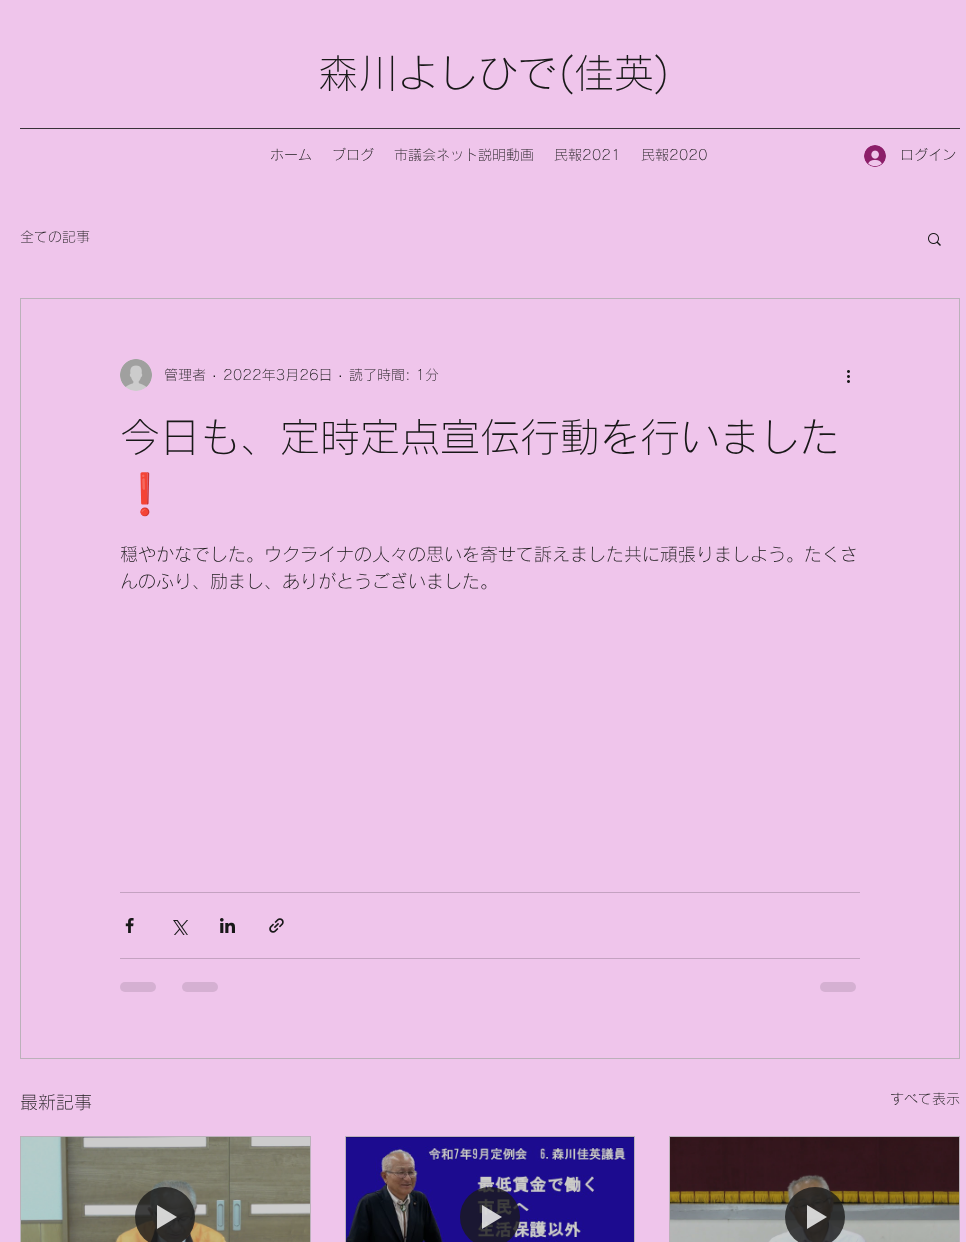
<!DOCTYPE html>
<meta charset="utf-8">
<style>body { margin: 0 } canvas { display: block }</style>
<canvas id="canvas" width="966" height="1242"></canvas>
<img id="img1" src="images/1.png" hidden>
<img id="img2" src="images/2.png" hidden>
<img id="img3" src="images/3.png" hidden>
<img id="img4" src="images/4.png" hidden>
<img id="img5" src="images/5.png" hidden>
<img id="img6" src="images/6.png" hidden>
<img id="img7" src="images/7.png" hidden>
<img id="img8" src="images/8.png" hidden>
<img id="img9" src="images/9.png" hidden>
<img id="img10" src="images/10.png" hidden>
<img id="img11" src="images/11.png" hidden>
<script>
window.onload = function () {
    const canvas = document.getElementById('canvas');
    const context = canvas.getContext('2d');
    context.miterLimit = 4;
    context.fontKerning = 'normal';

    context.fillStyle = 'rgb(239, 197, 235)';
    context.fillRect(0, 0, 966, 1242);
    context.fillStyle = 'rgb(56, 50, 56)';
    context.fillRect(20, 128, 940, 1);
    context.drawImage(document.getElementById('img1'), 864, 145, 22, 22);
    context.drawImage(document.getElementById('img2'), 928, 233, 13, 13);
    context.strokeStyle = 'rgb(187, 177, 186)';
    context.strokeRect(20.5, 298.5, 939, 760);
    context.drawImage(document.getElementById('img3'), 120, 359, 32, 32);
    context.drawImage(document.getElementById('img4'), 847, 370, 3, 13);
    context.fillStyle = 'rgb(196, 162, 193)';
    context.fillRect(120, 892, 740, 1);
    context.drawImage(document.getElementById('img5'), 125, 918, 9, 15);
    context.drawImage(document.getElementById('img6'), 173, 920, 15, 15);
    context.drawImage(document.getElementById('img7'), 220, 918, 15, 15);
    context.drawImage(document.getElementById('img8'), 269, 918, 15, 15);
    context.fillRect(120, 958, 740, 1);
    context.fillStyle = 'rgb(213, 176, 210)';
    context.beginPath();
    context.roundRect(120, 982, 36, 10, 5);
    context.fill();
    context.beginPath();
    context.roundRect(182, 982, 36, 10, 5);
    context.fill();
    context.beginPath();
    context.roundRect(820, 982, 36, 10, 5);
    context.fill();
    context.strokeRect(20.5, 1136.5, 290, 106);
    context.drawImage(document.getElementById('img9'), 21, 1137, 289, 105);
    context.fillStyle = 'rgba(26, 26, 26, 0.8)';
    context.beginPath();
    context.arc(165, 1217, 30, 0, 2 * Math.PI);
    context.fill();
    context.fillStyle = 'rgba(255, 255, 255, 0.8)';
    context.beginPath();
    context.moveTo(157, 1205);
    context.lineTo(157, 1229);
    context.lineTo(177, 1217);
    context.closePath();
    context.fill();
    context.strokeRect(345.5, 1136.5, 289, 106);
    context.drawImage(document.getElementById('img10'), 346, 1137, 288, 105);
    context.fillStyle = 'rgba(26, 26, 26, 0.8)';
    context.beginPath();
    context.arc(490, 1217, 30, 0, 2 * Math.PI);
    context.fill();
    context.fillStyle = 'rgba(255, 255, 255, 0.8)';
    context.beginPath();
    context.moveTo(482, 1205);
    context.lineTo(482, 1229);
    context.lineTo(502, 1217);
    context.closePath();
    context.fill();
    context.strokeRect(669.5, 1136.5, 290, 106);
    context.drawImage(document.getElementById('img11'), 670, 1137, 289, 105);
    context.fillStyle = 'rgba(26, 26, 26, 0.8)';
    context.beginPath();
    context.arc(815, 1217, 30, 0, 2 * Math.PI);
    context.fill();
    context.fillStyle = 'rgba(255, 255, 255, 0.8)';
    context.beginPath();
    context.moveTo(807, 1205);
    context.lineTo(807, 1229);
    context.lineTo(827, 1217);
    context.closePath();
    context.fill();
    context.font = '300 40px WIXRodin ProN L';
    context.fillStyle = 'rgb(24, 24, 24)';
    context.fillText('森川よしひで(佳英)', 318, 88);
    context.font = '300 14px WIXRodin ProN L';
    context.fillText('ホーム', 270, 160);
    context.fillText('ブログ', 332, 160);
    context.fillText('市議会ネット説明動画', 394, 160);
    context.fillText('民報2021', 554, 160);
    context.fillText('民報2020', 641, 160);
    context.fillText('ログイン', 900, 160);
    context.fillText('全ての記事', 20, 242);
    context.fillText('管理者', 164, 380);
    context.font = '14px Liberation Sans';
    context.fillText('·', 212, 380);
    context.font = '300 14px WIXRodin ProN L';
    context.fillText('2022年3月26日', 223, 380);
    context.font = '14px Liberation Sans';
    context.fillText('·', 338, 380);
    context.font = '300 14px WIXRodin ProN L';
    context.fillText('読了時間: 1分', 349, 380);
    context.font = '300 40px WIXRodin ProN L';
    context.fillText('今日も、定時定点宣伝行動を行いました', 120, 452);
    context.font = '40px Noto Color Emoji';
    context.fillText('❗️', 120, 508);
    context.font = '300 18px WIXRodin ProN L';
    context.fillText('穏やかなでした。ウクライナの人々の思いを寄せて訴えました共に頑張りましよう。たくさ', 120, 561);
    context.fillText('んのふり、励まし、ありがとうございました。', 120, 588);
    context.fillText('最新記事', 20, 1109);
    context.font = '300 14px WIXRodin ProN L';
    context.fillText('すべて表示', 890, 1104);
};
</script>
